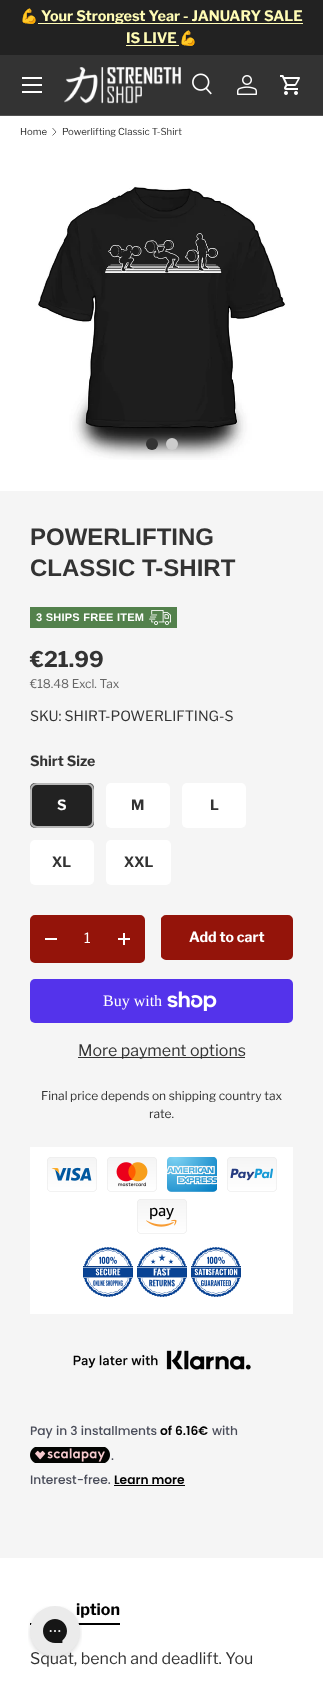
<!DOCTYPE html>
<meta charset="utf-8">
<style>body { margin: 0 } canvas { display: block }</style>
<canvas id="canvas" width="323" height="1683"></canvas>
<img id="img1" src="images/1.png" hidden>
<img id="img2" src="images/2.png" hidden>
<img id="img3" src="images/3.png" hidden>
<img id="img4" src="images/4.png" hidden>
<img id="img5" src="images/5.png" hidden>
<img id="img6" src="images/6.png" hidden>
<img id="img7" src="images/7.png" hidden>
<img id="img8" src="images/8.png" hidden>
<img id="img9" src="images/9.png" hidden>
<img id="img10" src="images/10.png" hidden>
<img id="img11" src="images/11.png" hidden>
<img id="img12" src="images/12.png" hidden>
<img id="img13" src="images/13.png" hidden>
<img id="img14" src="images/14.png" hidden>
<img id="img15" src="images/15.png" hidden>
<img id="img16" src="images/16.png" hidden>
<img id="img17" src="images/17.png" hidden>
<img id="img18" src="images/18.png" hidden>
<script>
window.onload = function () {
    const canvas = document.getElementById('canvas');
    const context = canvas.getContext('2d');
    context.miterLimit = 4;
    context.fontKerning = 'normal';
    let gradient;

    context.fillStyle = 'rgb(34, 34, 34)';
    context.fillRect(0, 0, 323, 1683);
    context.fillStyle = 'rgb(255, 252, 181)';
    context.fillRect(38, 23, 265, 1);
    context.fillRect(126, 45, 53, 1);
    context.fillStyle = 'rgb(51, 51, 51)';
    context.fillRect(0, 55, 323, 60);
    context.fillStyle = 'rgb(82, 82, 82)';
    context.fillRect(0, 115, 323, 1);
    context.fillStyle = 'rgb(255, 255, 255)';
    context.fillRect(22, 77, 20, 2);
    context.fillRect(22, 91, 20, 2);
    context.fillRect(22, 84, 20, 2);
    context.drawImage(document.getElementById('img1'), 64, 67, 117, 37);
    context.drawImage(document.getElementById('img2'), 192, 73, 20, 22);
    context.drawImage(document.getElementById('img3'), 237, 75, 20, 20);
    context.drawImage(document.getElementById('img4'), 280, 75, 20, 20);
    context.fillRect(0, 116, 323, 375);
    context.beginPath();
    context.moveTo(52.5, 128);
    context.lineTo(56, 132);
    context.lineTo(52.5, 135.5);
    context.strokeStyle = 'rgb(51, 51, 51)';
    context.lineWidth = 0.7;
    context.stroke();
    context.drawImage(document.getElementById('img5'), 37, 186, 249, 274);
    context.fillStyle = 'rgb(51, 51, 51)';
    context.beginPath();
    context.arc(152, 444, 6, 0, 2 * Math.PI);
    context.fill();
    context.fillStyle = 'rgb(204, 204, 204)';
    context.beginPath();
    context.arc(172, 444, 6, 0, 2 * Math.PI);
    context.fill();
    context.fillStyle = 'rgb(245, 245, 245)';
    context.fillRect(0, 491, 323, 1067);
    context.fillStyle = 'rgb(83, 129, 76)';
    context.fillRect(30, 607, 147, 21);
    context.drawImage(document.getElementById('img6'), 149, 610, 22, 15);
    context.fillStyle = 'rgb(34, 34, 34)';
    context.beginPath();
    context.roundRect(30, 783, 64, 45, 5);
    context.fill();
    context.beginPath();
    context.roundRect(31, 784, 62, 43, 4);
    context.strokeStyle = 'rgba(255, 255, 255, 0.2)';
    context.lineWidth = 2;
    context.stroke();
    context.beginPath();
    context.roundRect(31, 784, 62, 43, 6);
    context.strokeStyle = 'rgba(255, 255, 255, 0.6)';
    context.stroke();
    context.fillStyle = 'rgb(255, 255, 255)';
    context.beginPath();
    context.roundRect(106, 783, 64, 45, 5);
    context.fill();
    context.beginPath();
    context.roundRect(182, 783, 64, 45, 5);
    context.fill();
    context.beginPath();
    context.roundRect(30, 840, 64, 45, 5);
    context.fill();
    context.beginPath();
    context.roundRect(106, 840, 65, 45, 5);
    context.fill();
    context.fillStyle = 'rgb(148, 20, 10)';
    context.beginPath();
    context.roundRect(31, 916, 113, 46, 4);
    context.fill();
    context.strokeStyle = 'rgb(148, 20, 10)';
    context.stroke();
    context.fillStyle = 'rgb(255, 255, 255)';
    context.fillRect(45, 938, 12, 2);
    context.fillRect(118, 938, 12, 2);
    context.fillRect(123, 933, 2, 12);
    context.save();
    context.beginPath();
    context.roundRect(161, 915, 132, 45, 5);
    context.clip();
    gradient = context.createLinearGradient(-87, 891, 285, 984);
    gradient.addColorStop(0.6, 'rgba(255, 255, 255, 0.07)');
    gradient.addColorStop(0.6, 'rgb(148, 20, 10)');
    gradient.addColorStop(1, 'rgb(148, 20, 10)');
    context.fillStyle = gradient;
    context.fillRect(161, 917, 130, 41);
    context.restore();
    context.beginPath();
    context.roundRect(162, 916, 130, 43, 4);
    context.stroke();
    context.fillStyle = 'rgb(84, 51, 235)';
    context.beginPath();
    context.roundRect(30, 979, 263, 44, 5);
    context.fill();
    context.drawImage(document.getElementById('img7'), 167, 991, 50, 20);
    context.fillStyle = 'rgb(51, 51, 51)';
    context.fillRect(78, 1057, 167, 1);
    context.fillStyle = 'rgb(255, 255, 255)';
    context.fillRect(30, 1147, 263, 167);
    context.drawImage(document.getElementById('img8'), 47, 1157, 50, 35);
    context.drawImage(document.getElementById('img9'), 107, 1157, 50, 35);
    context.drawImage(document.getElementById('img10'), 167, 1157, 50, 35);
    context.drawImage(document.getElementById('img11'), 227, 1157, 50, 35);
    context.drawImage(document.getElementById('img12'), 137, 1199, 50, 35);
    context.drawImage(document.getElementById('img13'), 83, 1247, 50, 50);
    context.drawImage(document.getElementById('img14'), 137, 1247, 50, 50);
    context.drawImage(document.getElementById('img15'), 191, 1247, 50, 50);
    context.drawImage(document.getElementById('img16'), 73, 1350, 178, 20);
    context.drawImage(document.getElementById('img17'), 30, 1447, 80, 16);
    context.fillStyle = 'rgb(0, 0, 0)';
    context.fillRect(114, 1485, 71, 1);
    context.fillStyle = 'rgb(255, 255, 255)';
    context.fillRect(0, 1558, 323, 125);
    context.fillStyle = 'rgb(0, 0, 0)';
    context.fillRect(30, 1623, 90, 2);
    context.font = '14.4px Noto Color Emoji';
    context.fillStyle = 'rgb(255, 252, 181)';
    context.fillText('💪', 20, 21);
    context.font = 'bold 14.4px Libre Franklin';
    context.fillText('Your Strongest Year - JANUARY SALE', 41, 21);
    context.fillText('IS LIVE', 126, 43);
    context.font = '14.4px Noto Color Emoji';
    context.fillText('💪', 179, 43);
    context.font = '9.6px Libre Franklin';
    context.fillStyle = 'rgb(51, 51, 51)';
    context.fillText('Home', 20, 135);
    context.fillText('Powerlifting Classic T-Shirt', 62, 135);
    context.font = 'bold 24px Arimo';
    context.fillText('POWERLIFTING', 30, 545);
    context.fillText('CLASSIC T-SHIRT', 30, 576);
    context.letterSpacing = '0.25px';
    context.font = 'bold 11px Arimo';
    context.fillStyle = 'rgb(255, 255, 255)';
    context.fillText('3 SHIPS FREE ITEM', 36, 621);
    context.letterSpacing = '0px';
    context.font = 'bold 21.5px Libre Franklin';
    context.fillStyle = 'rgb(51, 51, 51)';
    context.fillText('€21.99', 30, 667);
    context.font = '12px Libre Franklin';
    context.fillStyle = 'rgb(102, 102, 102)';
    context.fillText('€18.48 Excl. Tax', 30, 688);
    context.font = '14.1px Libre Franklin';
    context.fillStyle = 'rgb(51, 51, 51)';
    context.fillText('SKU: SHIRT-POWERLIFTING-S', 30, 721);
    context.font = 'bold 14.1px Libre Franklin';
    context.fillText('Shirt Size', 30, 766);
    context.fillStyle = 'rgb(255, 255, 255)';
    context.fillText('S', 57, 810);
    context.fillStyle = 'rgb(51, 51, 51)';
    context.fillText('M', 131, 810);
    context.fillText('L', 210, 810);
    context.fillText('XL', 52, 867);
    context.fillText('XXL', 124, 867);
    context.font = '14.1px Libre Franklin';
    context.fillStyle = 'rgb(255, 255, 255)';
    context.fillText('1', 84, 943);
    context.font = 'bold 14.1px Libre Franklin';
    context.fillText('Add to cart', 189, 942);
    context.font = '16px Liberation Serif';
    context.fillText('Buy with', 103, 1006);
    context.font = '16px Libre Franklin';
    context.fillStyle = 'rgb(51, 51, 51)';
    context.fillText('More payment options', 78, 1056);
    context.font = '12px Libre Franklin';
    context.fillText('Final price depends on shipping country tax', 41, 1100);
    context.fillText('rate.', 149, 1118);
    context.font = '500 12.25px Poppins';
    context.fillStyle = 'rgb(74, 77, 90)';
    context.fillText('Pay in 3 installments', 30, 1435);
    context.font = '600 12.25px Poppins';
    context.fillStyle = 'rgb(0, 0, 0)';
    context.fillText('of 6.16€', 160, 1435);
    context.font = '500 12.25px Poppins';
    context.fillStyle = 'rgb(74, 77, 90)';
    context.fillText('with', 212, 1435);
    context.fillText('.', 111, 1460);
    context.fillText('Interest-free.', 30, 1484);
    context.font = '600 12.25px Poppins';
    context.fillStyle = 'rgb(0, 0, 0)';
    context.fillText('Learn more', 114, 1484);
    context.font = 'bold 16px Libre Franklin';
    context.fillText('iption', 76, 1615);
    context.font = '16px Libre Franklin';
    context.fillStyle = 'rgb(51, 51, 51)';
    context.fillText('Squat, bench and deadlift. You', 30, 1664);
    context.drawImage(document.getElementById('img18'), 28, 1606, 54, 54);
};
</script>
